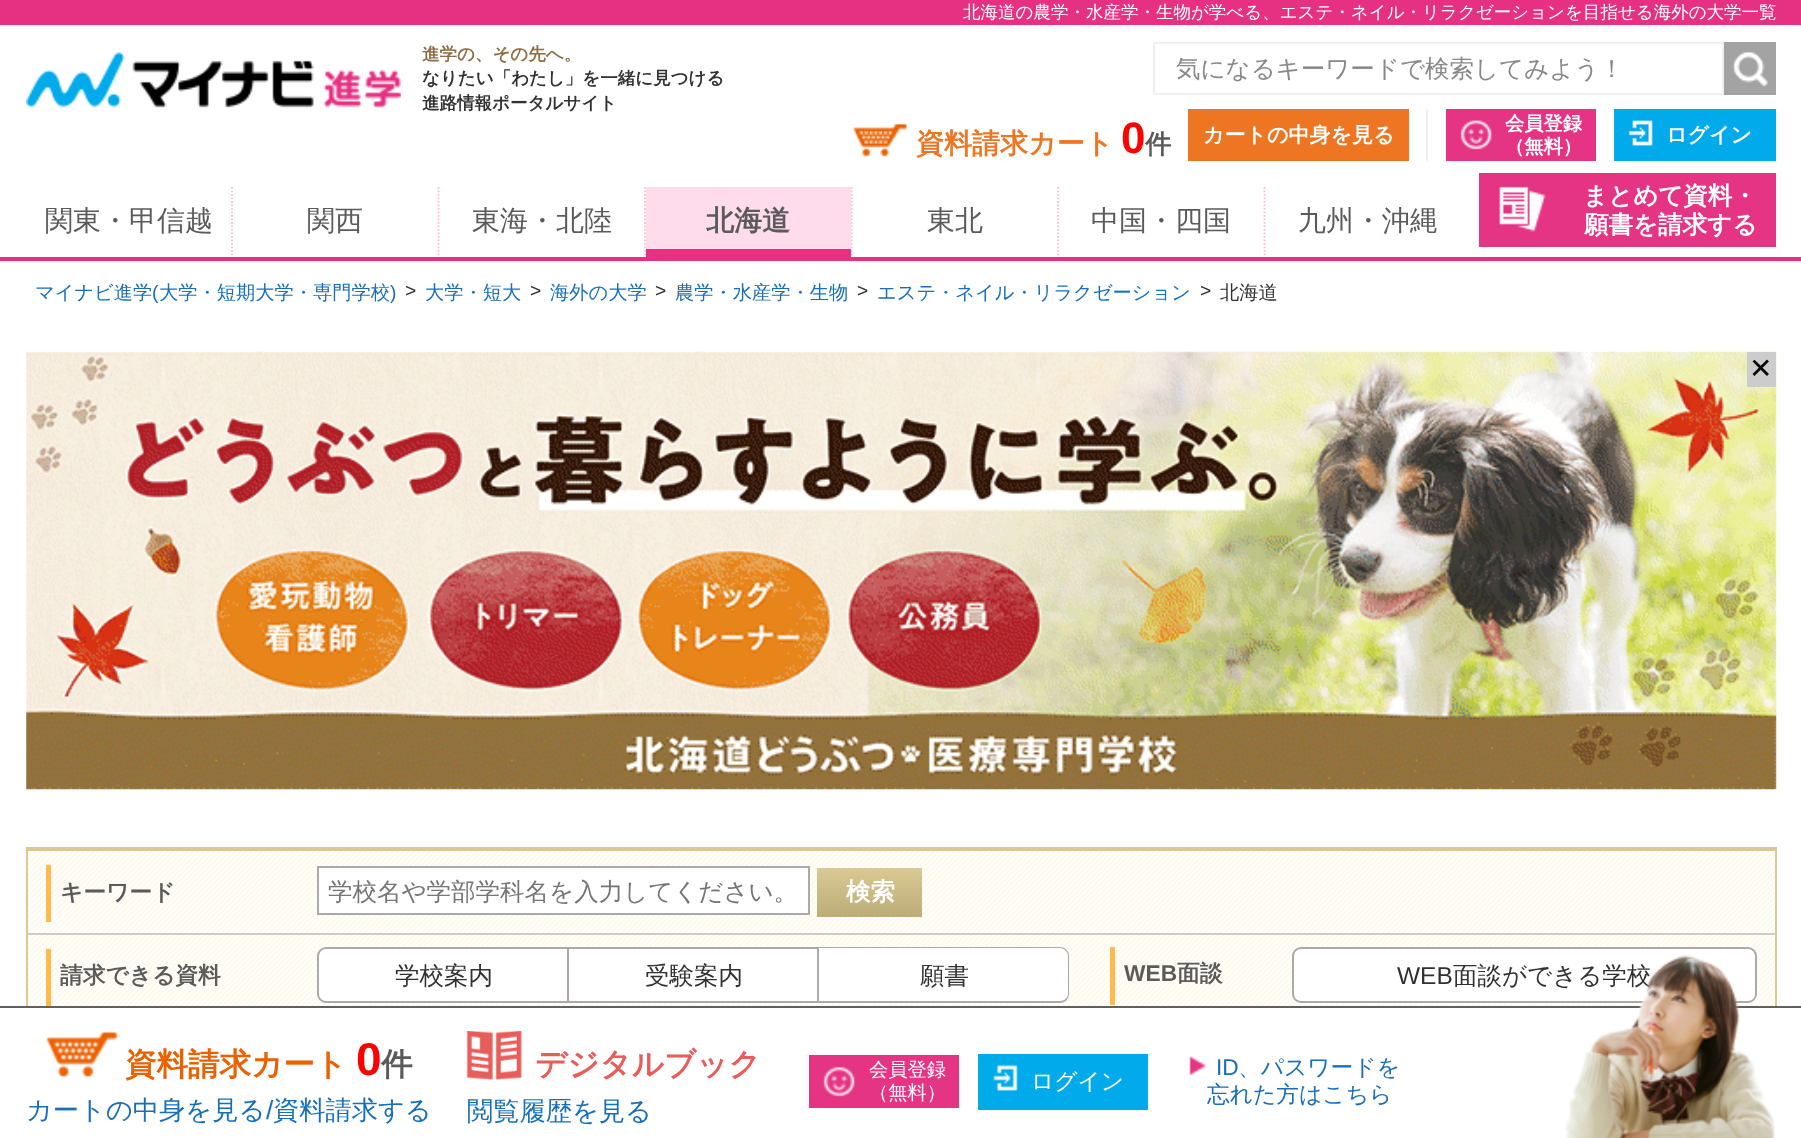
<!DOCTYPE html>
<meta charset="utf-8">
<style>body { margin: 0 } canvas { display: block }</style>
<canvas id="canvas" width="1801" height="1138"></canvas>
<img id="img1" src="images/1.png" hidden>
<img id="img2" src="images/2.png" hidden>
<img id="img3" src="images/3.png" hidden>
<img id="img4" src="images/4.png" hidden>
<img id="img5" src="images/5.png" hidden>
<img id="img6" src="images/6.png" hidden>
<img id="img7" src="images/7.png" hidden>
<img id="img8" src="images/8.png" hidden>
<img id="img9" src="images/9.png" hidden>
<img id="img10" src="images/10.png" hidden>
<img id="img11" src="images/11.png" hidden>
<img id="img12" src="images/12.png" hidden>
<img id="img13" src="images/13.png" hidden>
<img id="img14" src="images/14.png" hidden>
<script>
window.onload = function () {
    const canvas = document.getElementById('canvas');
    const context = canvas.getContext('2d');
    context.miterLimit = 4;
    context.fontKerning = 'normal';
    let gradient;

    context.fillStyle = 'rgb(255, 255, 255)';
    context.fillRect(0, 0, 1801, 1138);
    context.fillStyle = 'rgb(230, 48, 130)';
    context.fillRect(0, 0, 1801, 25);
    context.drawImage(document.getElementById('img1'), 26, 52, 375, 56);
    context.strokeStyle = 'rgb(240, 240, 240)';
    context.lineWidth = 2;
    context.strokeRect(1154, 43, 569, 51);
    context.fillStyle = 'rgb(163, 163, 163)';
    context.fillRect(1724, 42, 52, 53);
    context.drawImage(document.getElementById('img2'), 1732, 51, 36, 36);
    context.drawImage(document.getElementById('img3'), 853, 123, 54, 34);
    context.fillStyle = 'rgb(238, 118, 34)';
    context.fillRect(1188, 109, 221, 52);
    context.fillStyle = 'rgb(240, 240, 240)';
    context.fillRect(1426, 109, 2, 52);
    context.fillStyle = 'rgb(230, 52, 132)';
    context.fillRect(1446, 109, 150, 52);
    context.drawImage(document.getElementById('img4'), 1460, 120, 32, 30);
    context.fillStyle = 'rgb(0, 170, 235)';
    context.fillRect(1614, 109, 162, 52);
    context.drawImage(document.getElementById('img5'), 1628, 120, 25, 26);
    context.fillStyle = 'rgb(230, 52, 132)';
    context.fillRect(1479, 173, 297, 74);
    context.drawImage(document.getElementById('img6'), 1499, 186, 47, 46);
    context.fillStyle = 'rgb(230, 48, 130)';
    context.fillRect(0, 257, 1801, 4);
    context.beginPath();
    context.moveTo(232, 187);
    context.lineTo(232, 257);
    context.strokeStyle = 'rgb(255, 186, 217)';
    context.lineWidth = 1.8;
    context.setLineDash([1.75, 1.75]);
    context.stroke();
    context.beginPath();
    context.moveTo(438.5, 187);
    context.lineTo(438.5, 257);
    context.stroke();
    context.beginPath();
    context.moveTo(645, 187);
    context.lineTo(645, 257);
    context.stroke();
    context.beginPath();
    context.moveTo(851.5, 187);
    context.lineTo(851.5, 257);
    context.stroke();
    context.fillStyle = 'rgb(255, 220, 236)';
    context.fillRect(646, 187, 205, 62);
    context.fillStyle = 'rgb(230, 48, 130)';
    context.fillRect(646, 249, 205, 8);
    context.beginPath();
    context.moveTo(1058, 187);
    context.lineTo(1058, 257);
    context.stroke();
    context.beginPath();
    context.moveTo(1264.5, 187);
    context.lineTo(1264.5, 257);
    context.stroke();
    context.drawImage(document.getElementById('img7'), 26, 351, 1751, 439);
    context.fillStyle = 'rgb(204, 204, 204)';
    context.fillRect(1747, 352, 29, 35);
    context.drawImage(document.getElementById('img8'), 28, 851, 1747, 155);
    context.fillStyle = 'rgb(217, 201, 147)';
    context.fillRect(26, 847, 1750, 4);
    context.fillRect(1775, 847, 2, 159);
    context.fillRect(26, 847, 2, 159);
    context.fillStyle = 'rgb(255, 186, 76)';
    context.fillRect(46, 865, 5, 57);
    context.fillStyle = 'rgb(255, 255, 255)';
    context.beginPath();
    context.rect(318, 867, 491, 47);
    context.fill();
    context.strokeStyle = 'rgb(170, 170, 170)';
    context.lineWidth = 2;
    context.setLineDash([]);
    context.stroke();
    gradient = context.createLinearGradient(870, 868, 870, 917);
    gradient.addColorStop(0, 'rgb(217, 201, 147)');
    gradient.addColorStop(1, 'rgb(188, 172, 119)');
    context.fillStyle = gradient;
    context.fillRect(817, 868, 105, 49);
    context.fillStyle = 'rgb(255, 186, 76)';
    context.fillRect(46, 949, 5, 57);
    context.fillStyle = 'rgb(204, 204, 204)';
    context.fillRect(28, 933, 1748, 2);
    context.fillStyle = 'rgb(255, 255, 255)';
    context.beginPath();
    context.roundRect(318, 948, 250, 54, [8, 0, 0, 8]);
    context.fill();
    context.stroke();
    context.fillRect(569, 949, 248, 52);
    context.fillStyle = 'rgb(170, 170, 170)';
    context.fillRect(569, 947, 250, 2);
    context.fillRect(817, 947, 2, 56);
    context.fillRect(569, 1001, 250, 2);
    context.fillStyle = 'rgb(255, 255, 255)';
    context.beginPath();
    context.roundRect(819, 947, 250, 56, [0, 9, 9, 0]);
    context.fill();
    context.fillStyle = 'rgb(170, 170, 170)';
    context.beginPath();
    context.moveTo(819, 947);
    context.lineTo(1060, 947);
    context.bezierCurveTo(1065, 947, 1069, 951, 1069, 956);
    context.lineTo(1069, 994);
    context.bezierCurveTo(1069, 999, 1065, 1003, 1060, 1003);
    context.lineTo(819, 1003);
    context.closePath();
    context.moveTo(819, 948);
    context.lineTo(1060, 948);
    context.bezierCurveTo(1064, 948, 1068, 952, 1068, 956);
    context.lineTo(1068, 994);
    context.bezierCurveTo(1068, 998, 1064, 1001, 1060, 1001);
    context.lineTo(819, 1001);
    context.closePath();
    context.fill('evenodd');
    context.fillStyle = 'rgb(255, 186, 76)';
    context.fillRect(1110, 947, 5, 58);
    context.fillStyle = 'rgb(255, 255, 255)';
    context.beginPath();
    context.roundRect(1293, 948, 463, 54, 8);
    context.fill();
    context.stroke();
    context.fillStyle = 'rgb(96, 96, 96)';
    context.fillRect(0, 1006, 1801, 2);
    context.drawImage(document.getElementById('img9'), 46, 1031, 72, 46);
    context.drawImage(document.getElementById('img10'), 466, 1031, 56, 49);
    context.fillStyle = 'rgb(230, 52, 132)';
    context.fillRect(809, 1055, 150, 53);
    context.drawImage(document.getElementById('img11'), 823, 1066, 32, 31);
    context.fillStyle = 'rgb(0, 170, 235)';
    context.fillRect(978, 1054, 170, 56);
    context.drawImage(document.getElementById('img12'), 993, 1064, 25, 27);
    context.drawImage(document.getElementById('img13'), 1189, 1055, 18, 21);
    context.font = '500 17.5px WenQuanYi Zen Hei';
    context.fillStyle = 'rgb(255, 255, 255)';
    context.fillText('北海道の農学・水産学・生物が学べる、エステ・ネイル・リラクゼーションを目指せる海外の大学一覧', 963, 18);
    context.font = 'bold 17.5px WenQuanYi Zen Hei';
    context.fillStyle = 'rgb(142, 109, 67)';
    context.fillText('進学の、その先へ。', 422, 60);
    context.fillStyle = 'rgb(49, 49, 49)';
    context.fillText('なりたい「わたし」を一緒に見つける', 422, 84);
    context.fillText('進路情報ポータルサイト', 422, 109);
    context.font = '500 24.5px WenQuanYi Zen Hei';
    context.fillStyle = 'rgb(136, 136, 136)';
    context.fillText('気になるキーワードで検索してみよう！', 1176, 77);
    context.font = 'bold 28px WenQuanYi Zen Hei';
    context.fillStyle = 'rgb(238, 118, 34)';
    context.fillText('資料請求カート', 916, 153);
    context.font = 'bold 44px Liberation Sans';
    context.fillStyle = 'rgb(255, 0, 0)';
    context.fillText('0', 1121, 153);
    context.font = 'bold 26.25px WenQuanYi Zen Hei';
    context.fillStyle = 'rgb(91, 91, 91)';
    context.fillText('件', 1145, 153);
    context.font = 'bold 21px WenQuanYi Zen Hei';
    context.fillStyle = 'rgb(255, 255, 255)';
    context.fillText('カートの中身を見る', 1203, 142);
    context.font = 'bold 19.25px WenQuanYi Zen Hei';
    context.fillText('会員登録', 1505, 130);
    context.fillText('（無料）', 1505, 153);
    context.font = 'bold 21px WenQuanYi Zen Hei';
    context.fillText('ログイン', 1666, 142);
    context.font = 'bold 24.5px WenQuanYi Zen Hei';
    context.fillText('まとめて資料・', 1583, 204);
    context.fillText('願書を請求する', 1584, 233);
    context.font = '500 28px WenQuanYi Zen Hei';
    context.fillStyle = 'rgb(91, 91, 91)';
    context.fillText('関東・甲信越', 45, 230);
    context.fillText('関西', 307, 230);
    context.fillText('東海・北陸', 472, 230);
    context.font = 'bold 28px WenQuanYi Zen Hei';
    context.fillText('北海道', 706, 230);
    context.font = '500 28px WenQuanYi Zen Hei';
    context.fillText('東北', 927, 230);
    context.fillText('中国・四国', 1091, 230);
    context.fillText('九州・沖縄', 1298, 230);
    context.font = '500 19.25px WenQuanYi Zen Hei';
    context.fillStyle = 'rgb(23, 111, 186)';
    context.fillText('マイナビ進学', 35, 299);
    context.font = '19.25px Liberation Sans';
    context.fillText('(', 152, 299);
    context.font = '500 19.25px WenQuanYi Zen Hei';
    context.fillText('大学・短期大学・専門学校', 159, 299);
    context.font = '19.25px Liberation Sans';
    context.fillText(')', 390, 299);
    context.fillStyle = 'rgb(49, 49, 49)';
    context.fillText('>', 405, 297);
    context.font = '500 19.25px WenQuanYi Zen Hei';
    context.fillStyle = 'rgb(23, 111, 186)';
    context.fillText('大学・短大', 425, 299);
    context.font = '19.25px Liberation Sans';
    context.fillStyle = 'rgb(49, 49, 49)';
    context.fillText('>', 530, 297);
    context.font = '500 19.25px WenQuanYi Zen Hei';
    context.fillStyle = 'rgb(23, 111, 186)';
    context.fillText('海外の大学', 550, 299);
    context.font = '19.25px Liberation Sans';
    context.fillStyle = 'rgb(49, 49, 49)';
    context.fillText('>', 655, 297);
    context.font = '500 19.25px WenQuanYi Zen Hei';
    context.fillStyle = 'rgb(23, 111, 186)';
    context.fillText('農学・水産学・生物', 675, 299);
    context.font = '19.25px Liberation Sans';
    context.fillStyle = 'rgb(49, 49, 49)';
    context.fillText('>', 857, 297);
    context.font = '500 19.25px WenQuanYi Zen Hei';
    context.fillStyle = 'rgb(23, 111, 186)';
    context.fillText('エステ・ネイル・リラクゼーション', 877, 299);
    context.font = '19.25px Liberation Sans';
    context.fillStyle = 'rgb(49, 49, 49)';
    context.fillText('>', 1200, 297);
    context.font = '500 19.25px WenQuanYi Zen Hei';
    context.fillText('北海道', 1220, 299);
    context.font = '28px DejaVu Sans';
    context.fillStyle = 'rgb(0, 0, 0)';
    context.fillText('✕', 1749, 378);
    context.font = 'bold 22.75px WenQuanYi Zen Hei';
    context.fillStyle = 'rgb(91, 91, 91)';
    context.fillText('キーワード', 60, 900);
    context.font = '500 24.5px WenQuanYi Zen Hei';
    context.fillStyle = 'rgb(117, 117, 117)';
    context.fillText('学校名や学部学科名を入力してください。', 328, 900);
    context.font = 'bold 24.5px WenQuanYi Zen Hei';
    context.fillStyle = 'rgb(255, 255, 255)';
    context.fillText('検索', 846, 900);
    context.font = 'bold 22.75px WenQuanYi Zen Hei';
    context.fillStyle = 'rgb(91, 91, 91)';
    context.fillText('請求できる資料', 60, 983);
    context.font = '500 24.5px WenQuanYi Zen Hei';
    context.fillStyle = 'rgb(49, 49, 49)';
    context.fillText('学校案内', 395, 984);
    context.fillText('受験案内', 645, 984);
    context.fillText('願書', 920, 984);
    context.font = 'bold 22.75px Liberation Sans';
    context.fillStyle = 'rgb(91, 91, 91)';
    context.fillText('WEB', 1124, 981);
    context.font = 'bold 22.75px WenQuanYi Zen Hei';
    context.fillText('面談', 1177, 981);
    context.font = '24.5px Liberation Sans';
    context.fillStyle = 'rgb(49, 49, 49)';
    context.fillText('WEB', 1397, 984);
    context.font = '500 24.5px WenQuanYi Zen Hei';
    context.fillText('面談ができる学校', 1453, 984);
    context.font = 'bold 31.5px WenQuanYi Zen Hei';
    context.fillStyle = 'rgb(235, 97, 0)';
    context.fillText('資料請求カート', 125, 1075);
    context.font = 'bold 46px Liberation Sans';
    context.fillStyle = 'rgb(255, 0, 0)';
    context.fillText('0', 356, 1075);
    context.font = 'bold 31.5px WenQuanYi Zen Hei';
    context.fillStyle = 'rgb(91, 91, 91)';
    context.fillText('件', 381, 1075);
    context.font = '500 26.25px WenQuanYi Zen Hei';
    context.fillStyle = 'rgb(23, 111, 186)';
    context.fillText('カートの中身を見る', 26, 1119);
    context.font = '26.25px Liberation Sans';
    context.fillText('/', 266, 1119);
    context.font = '500 26.25px WenQuanYi Zen Hei';
    context.fillText('資料請求する', 273, 1119);
    context.font = 'bold 31.5px WenQuanYi Zen Hei';
    context.fillStyle = 'rgb(230, 93, 90)';
    context.fillText('デジタルブック', 535, 1075);
    context.font = '500 26.25px WenQuanYi Zen Hei';
    context.fillStyle = 'rgb(23, 111, 186)';
    context.fillText('閲覧履歴を見る', 467, 1120);
    context.font = '500 19.25px WenQuanYi Zen Hei';
    context.fillStyle = 'rgb(255, 255, 255)';
    context.fillText('会員登録', 869, 1076);
    context.fillText('（無料）', 869, 1099);
    context.font = '500 22.75px WenQuanYi Zen Hei';
    context.fillText('ログイン', 1031, 1089);
    context.font = '22.75px Liberation Sans';
    context.fillStyle = 'rgb(23, 111, 186)';
    context.fillText('ID', 1216, 1075);
    context.font = '500 22.75px WenQuanYi Zen Hei';
    context.fillText('、パスワードを', 1238, 1075);
    context.fillText('忘れた方はこちら', 1207, 1102);
    context.drawImage(document.getElementById('img14'), 1565, 955, 210, 183);
};
</script>
